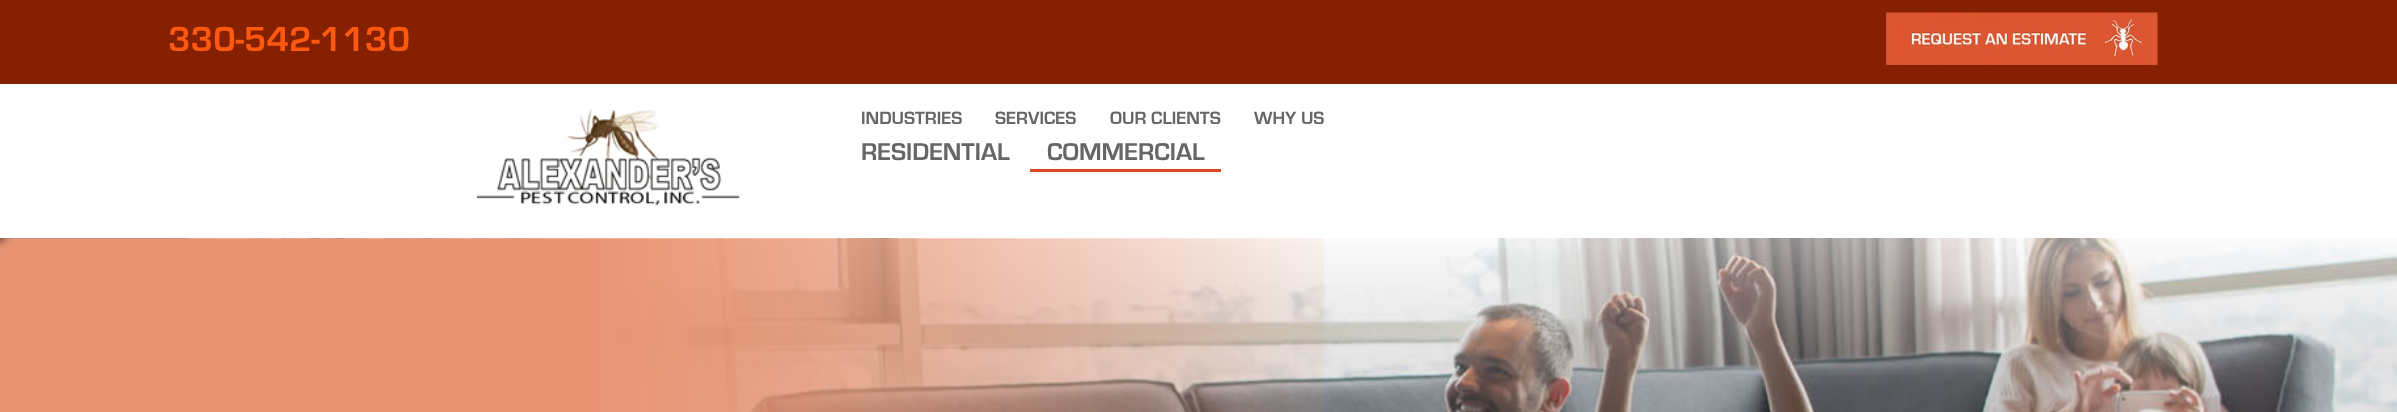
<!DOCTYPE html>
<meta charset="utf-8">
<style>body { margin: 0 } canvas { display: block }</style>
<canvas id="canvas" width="2397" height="412"></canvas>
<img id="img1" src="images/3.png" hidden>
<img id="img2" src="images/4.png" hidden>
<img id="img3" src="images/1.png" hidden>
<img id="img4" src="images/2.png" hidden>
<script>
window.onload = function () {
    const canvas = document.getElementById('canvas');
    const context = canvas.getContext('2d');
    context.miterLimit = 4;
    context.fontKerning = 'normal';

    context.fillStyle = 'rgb(255, 255, 255)';
    context.fillRect(0, 0, 2397, 412);
    context.drawImage(document.getElementById('img1'), 0, 238, 2397, 174);
    context.drawImage(document.getElementById('img2'), 0, 238, 1324, 174);
    context.fillStyle = 'rgba(0, 0, 0, 0.75)';
    context.filter = 'blur(4.5px)';
    context.beginPath();
    context.rect(-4, -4, 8, 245);
    context.fill();
    context.filter = 'none';
    context.fillStyle = 'rgb(133, 33, 0)';
    context.fillRect(0, 0, 2397, 84);
    context.drawImage(document.getElementById('img3'), 1886, 12, 272, 53);
    context.fillStyle = 'rgb(255, 255, 255)';
    context.fillRect(0, 84, 14, 154);
    context.drawImage(document.getElementById('img4'), 476, 109, 264, 97);
    context.fillStyle = 'rgb(217, 74, 34)';
    context.fillRect(1030, 169, 191, 3);
    context.font = 'bold 36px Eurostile';
    context.fillStyle = 'rgb(255, 88, 17)';
    context.fillText('330-542-1130', 168, 51);
    context.font = 'bold 18.5px Eurostile';
    context.fillStyle = 'rgb(102, 102, 102)';
    context.fillText('INDUSTRIES', 861, 124);
    context.fillText('SERVICES', 995, 124);
    context.fillText('OUR CLIENTS', 1110, 124);
    context.fillText('WHY US', 1254, 124);
    context.font = 'bold 25.25px Eurostile';
    context.fillText('RESIDENTIAL', 861, 160);
    context.fillText('COMMERCIAL', 1047, 160);
};
</script>
